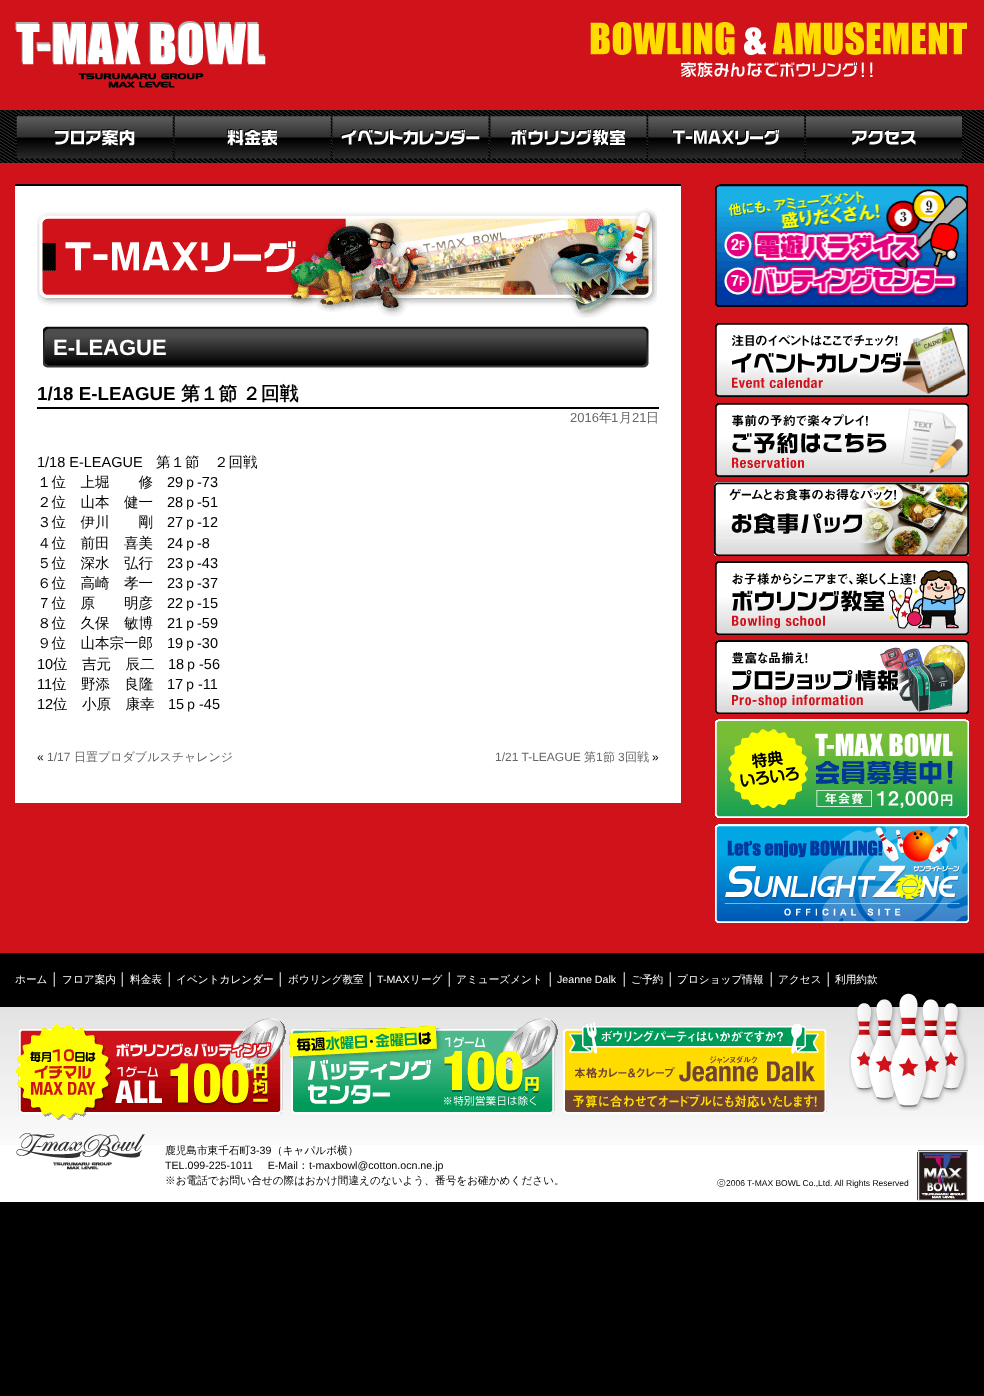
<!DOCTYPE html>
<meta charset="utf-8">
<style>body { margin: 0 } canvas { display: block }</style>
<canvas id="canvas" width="984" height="1396"></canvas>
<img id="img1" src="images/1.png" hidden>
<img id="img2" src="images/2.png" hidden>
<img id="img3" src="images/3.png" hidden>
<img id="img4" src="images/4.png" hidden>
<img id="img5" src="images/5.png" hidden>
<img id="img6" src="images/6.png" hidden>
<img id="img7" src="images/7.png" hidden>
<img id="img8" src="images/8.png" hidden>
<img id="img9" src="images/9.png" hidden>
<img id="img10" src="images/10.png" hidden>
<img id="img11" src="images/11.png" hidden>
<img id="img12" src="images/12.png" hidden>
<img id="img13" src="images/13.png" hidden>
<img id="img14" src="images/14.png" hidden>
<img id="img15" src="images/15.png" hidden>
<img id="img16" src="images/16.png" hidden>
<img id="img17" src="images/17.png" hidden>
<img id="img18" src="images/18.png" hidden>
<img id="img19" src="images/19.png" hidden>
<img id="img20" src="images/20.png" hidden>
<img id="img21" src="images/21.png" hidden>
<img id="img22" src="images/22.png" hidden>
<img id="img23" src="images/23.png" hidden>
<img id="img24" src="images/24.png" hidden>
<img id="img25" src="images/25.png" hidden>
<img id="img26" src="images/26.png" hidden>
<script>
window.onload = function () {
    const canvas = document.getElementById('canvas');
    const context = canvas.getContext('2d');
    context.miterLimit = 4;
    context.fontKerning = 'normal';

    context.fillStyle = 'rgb(0, 0, 0)';
    context.fillRect(0, 0, 984, 1396);
    context.fillStyle = 'rgb(208, 18, 27)';
    context.fillRect(0, 0, 984, 953);
    context.drawImage(document.getElementById('img1'), 15, 21, 251, 67);
    context.drawImage(document.getElementById('img2'), 590, 22, 377, 55);
    context.drawImage(document.getElementById('img3'), 0, 110, 984, 53);
    context.drawImage(document.getElementById('img4'), 16, 115, 158, 44);
    context.drawImage(document.getElementById('img5'), 174, 115, 158, 44);
    context.drawImage(document.getElementById('img6'), 332, 115, 158, 44);
    context.drawImage(document.getElementById('img7'), 490, 115, 158, 44);
    context.drawImage(document.getElementById('img8'), 648, 115, 158, 44);
    context.drawImage(document.getElementById('img9'), 806, 115, 158, 44);
    context.fillStyle = 'rgb(255, 255, 255)';
    context.fillRect(15, 186, 666, 617);
    context.fillStyle = 'rgb(0, 0, 0)';
    context.fillRect(15, 184, 666, 2);
    context.drawImage(document.getElementById('img10'), 37, 208, 620, 110);
    context.drawImage(document.getElementById('img11'), 43, 326, 606, 42);
    context.fillRect(37, 407, 622, 2);
    context.drawImage(document.getElementById('img12'), 715, 184, 254, 123);
    context.drawImage(document.getElementById('img13'), 715, 323, 254, 74);
    context.drawImage(document.getElementById('img14'), 715, 403, 254, 74);
    context.drawImage(document.getElementById('img15'), 714, 482, 255, 74);
    context.drawImage(document.getElementById('img16'), 715, 561, 254, 74);
    context.drawImage(document.getElementById('img17'), 715, 640, 254, 74);
    context.drawImage(document.getElementById('img18'), 715, 719, 254, 99);
    context.drawImage(document.getElementById('img19'), 715, 824, 254, 99);
    context.fillStyle = 'rgb(255, 255, 255)';
    context.fillRect(0, 1145, 984, 57);
    context.drawImage(document.getElementById('img20'), 0, 1007, 984, 138);
    context.drawImage(document.getElementById('img21'), 917, 1150, 51, 51);
    context.drawImage(document.getElementById('img22'), 15, 1018, 271, 102);
    context.drawImage(document.getElementById('img23'), 289, 1018, 269, 96);
    context.drawImage(document.getElementById('img24'), 563, 1022, 264, 92);
    context.drawImage(document.getElementById('img25'), 849, 993, 119, 118);
    context.drawImage(document.getElementById('img26'), 16, 1133, 129, 37);
    context.font = 'bold 22px Liberation Sans';
    context.fillText('E-LEAGUE', 53, 355);
    context.font = 'bold 18.75px Liberation Sans';
    context.fillStyle = 'rgb(0, 0, 0)';
    context.fillText('1/18 E-LEAGUE', 37, 400);
    context.font = 'bold 18.75px WenQuanYi Zen Hei';
    context.fillText('第１節', 181, 400);
    context.fillText('２回戦', 242, 400);
    context.font = '13px Liberation Sans';
    context.fillStyle = 'rgb(102, 102, 102)';
    context.fillText('2016', 570, 422);
    context.font = '500 13px WenQuanYi Zen Hei';
    context.fillText('年', 599, 422);
    context.font = '13px Liberation Sans';
    context.fillText('1', 611, 422);
    context.font = '500 13px WenQuanYi Zen Hei';
    context.fillText('月', 619, 422);
    context.font = '13px Liberation Sans';
    context.fillText('21', 632, 422);
    context.font = '500 13px WenQuanYi Zen Hei';
    context.fillText('日', 646, 422);
    context.font = '14.5px Liberation Sans';
    context.fillStyle = 'rgb(0, 0, 0)';
    context.fillText('1/18 E-LEAGUE', 37, 467);
    context.font = '500 14.5px WenQuanYi Zen Hei';
    context.fillText('第１節　２回戦', 156, 467);
    context.fillText('１位　上堀　　修', 37, 487);
    context.font = '14.5px Liberation Sans';
    context.fillText('29', 167, 487);
    context.font = '500 14.5px WenQuanYi Zen Hei';
    context.fillText('ｐ', 183, 487);
    context.font = '14.5px Liberation Sans';
    context.fillText('-73', 197, 487);
    context.font = '500 14.5px WenQuanYi Zen Hei';
    context.fillText('２位　山本　健一', 37, 507);
    context.font = '14.5px Liberation Sans';
    context.fillText('28', 167, 507);
    context.font = '500 14.5px WenQuanYi Zen Hei';
    context.fillText('ｐ', 183, 507);
    context.font = '14.5px Liberation Sans';
    context.fillText('-51', 197, 507);
    context.font = '500 14.5px WenQuanYi Zen Hei';
    context.fillText('３位　伊川　　剛', 37, 527);
    context.font = '14.5px Liberation Sans';
    context.fillText('27', 167, 527);
    context.font = '500 14.5px WenQuanYi Zen Hei';
    context.fillText('ｐ', 183, 527);
    context.font = '14.5px Liberation Sans';
    context.fillText('-12', 197, 527);
    context.font = '500 14.5px WenQuanYi Zen Hei';
    context.fillText('４位　前田　喜美', 37, 548);
    context.font = '14.5px Liberation Sans';
    context.fillText('24', 167, 548);
    context.font = '500 14.5px WenQuanYi Zen Hei';
    context.fillText('ｐ', 183, 548);
    context.font = '14.5px Liberation Sans';
    context.fillText('-8', 197, 548);
    context.font = '500 14.5px WenQuanYi Zen Hei';
    context.fillText('５位　深水　弘行', 37, 568);
    context.font = '14.5px Liberation Sans';
    context.fillText('23', 167, 568);
    context.font = '500 14.5px WenQuanYi Zen Hei';
    context.fillText('ｐ', 183, 568);
    context.font = '14.5px Liberation Sans';
    context.fillText('-43', 197, 568);
    context.font = '500 14.5px WenQuanYi Zen Hei';
    context.fillText('６位　高崎　孝一', 37, 588);
    context.font = '14.5px Liberation Sans';
    context.fillText('23', 167, 588);
    context.font = '500 14.5px WenQuanYi Zen Hei';
    context.fillText('ｐ', 183, 588);
    context.font = '14.5px Liberation Sans';
    context.fillText('-37', 197, 588);
    context.font = '500 14.5px WenQuanYi Zen Hei';
    context.fillText('７位　原　　明彦', 37, 608);
    context.font = '14.5px Liberation Sans';
    context.fillText('22', 167, 608);
    context.font = '500 14.5px WenQuanYi Zen Hei';
    context.fillText('ｐ', 183, 608);
    context.font = '14.5px Liberation Sans';
    context.fillText('-15', 197, 608);
    context.font = '500 14.5px WenQuanYi Zen Hei';
    context.fillText('８位　久保　敏博', 37, 628);
    context.font = '14.5px Liberation Sans';
    context.fillText('21', 167, 628);
    context.font = '500 14.5px WenQuanYi Zen Hei';
    context.fillText('ｐ', 183, 628);
    context.font = '14.5px Liberation Sans';
    context.fillText('-59', 197, 628);
    context.font = '500 14.5px WenQuanYi Zen Hei';
    context.fillText('９位　山本宗一郎', 37, 648);
    context.font = '14.5px Liberation Sans';
    context.fillText('19', 167, 648);
    context.font = '500 14.5px WenQuanYi Zen Hei';
    context.fillText('ｐ', 183, 648);
    context.font = '14.5px Liberation Sans';
    context.fillText('-30', 197, 648);
    context.fillText('10', 37, 669);
    context.font = '500 14.5px WenQuanYi Zen Hei';
    context.fillText('位　吉元　辰二', 53, 669);
    context.font = '14.5px Liberation Sans';
    context.fillText('18', 168, 669);
    context.font = '500 14.5px WenQuanYi Zen Hei';
    context.fillText('ｐ', 184, 669);
    context.font = '14.5px Liberation Sans';
    context.fillText('-56', 199, 669);
    context.fillText('11', 37, 689);
    context.font = '500 14.5px WenQuanYi Zen Hei';
    context.fillText('位　野添　良隆', 52, 689);
    context.font = '14.5px Liberation Sans';
    context.fillText('17', 167, 689);
    context.font = '500 14.5px WenQuanYi Zen Hei';
    context.fillText('ｐ', 183, 689);
    context.font = '14.5px Liberation Sans';
    context.fillText('-11', 198, 689);
    context.fillText('12', 37, 709);
    context.font = '500 14.5px WenQuanYi Zen Hei';
    context.fillText('位　小原　康幸', 53, 709);
    context.font = '14.5px Liberation Sans';
    context.fillText('15', 168, 709);
    context.font = '500 14.5px WenQuanYi Zen Hei';
    context.fillText('ｐ', 184, 709);
    context.font = '14.5px Liberation Sans';
    context.fillText('-45', 199, 709);
    context.font = '12px Liberation Sans';
    context.fillText('«', 37, 761);
    context.fillStyle = 'rgb(102, 102, 102)';
    context.fillText('1/17', 47, 761);
    context.font = '500 12px WenQuanYi Zen Hei';
    context.fillText('日置プロダブルスチャレンジ', 74, 761);
    context.font = '12px Liberation Sans';
    context.fillText('1/21 T-LEAGUE', 495, 761);
    context.font = '500 12px WenQuanYi Zen Hei';
    context.fillText('第', 584, 761);
    context.font = '12px Liberation Sans';
    context.fillText('1', 596, 761);
    context.font = '500 12px WenQuanYi Zen Hei';
    context.fillText('節', 603, 761);
    context.font = '12px Liberation Sans';
    context.fillText('3', 618, 761);
    context.font = '500 12px WenQuanYi Zen Hei';
    context.fillText('回戦', 625, 761);
    context.font = '12px Liberation Sans';
    context.fillStyle = 'rgb(0, 0, 0)';
    context.fillText('»', 652, 761);
    context.font = '500 10.65px WenQuanYi Zen Hei';
    context.fillStyle = 'rgb(255, 255, 255)';
    context.fillText('ホーム', 15, 983);
    context.font = '500 14.5px WenQuanYi Zen Hei';
    context.fillText('｜', 47, 983);
    context.font = '500 10.65px WenQuanYi Zen Hei';
    context.fillText('フロア案内', 62, 983);
    context.font = '500 14.5px WenQuanYi Zen Hei';
    context.fillText('｜', 115, 983);
    context.font = '500 10.65px WenQuanYi Zen Hei';
    context.fillText('料金表', 130, 983);
    context.font = '500 14.5px WenQuanYi Zen Hei';
    context.fillText('｜', 162, 983);
    context.font = '500 10.65px WenQuanYi Zen Hei';
    context.fillText('イベントカレンダー', 176, 983);
    context.font = '500 14.5px WenQuanYi Zen Hei';
    context.fillText('｜', 273, 983);
    context.font = '500 10.65px WenQuanYi Zen Hei';
    context.fillText('ボウリング教室', 288, 983);
    context.font = '500 14.5px WenQuanYi Zen Hei';
    context.fillText('｜', 363, 983);
    context.font = '10.65px Liberation Sans';
    context.fillText('T-MAX', 377, 983);
    context.font = '500 10.65px WenQuanYi Zen Hei';
    context.fillText('リーグ', 410, 983);
    context.font = '500 14.5px WenQuanYi Zen Hei';
    context.fillText('｜', 442, 983);
    context.font = '500 10.65px WenQuanYi Zen Hei';
    context.fillText('アミューズメント', 456, 983);
    context.font = '500 14.5px WenQuanYi Zen Hei';
    context.fillText('｜', 543, 983);
    context.font = '10.65px Liberation Sans';
    context.fillText('Jeanne Dalk', 557, 983);
    context.font = '500 14.5px WenQuanYi Zen Hei';
    context.fillText('｜', 617, 983);
    context.font = '500 10.65px WenQuanYi Zen Hei';
    context.fillText('ご予約', 631, 983);
    context.font = '500 14.5px WenQuanYi Zen Hei';
    context.fillText('｜', 663, 983);
    context.font = '500 10.65px WenQuanYi Zen Hei';
    context.fillText('プロショップ情報', 677, 983);
    context.font = '500 14.5px WenQuanYi Zen Hei';
    context.fillText('｜', 764, 983);
    context.font = '500 10.65px WenQuanYi Zen Hei';
    context.fillText('アクセス', 778, 983);
    context.font = '500 14.5px WenQuanYi Zen Hei';
    context.fillText('｜', 821, 983);
    context.font = '500 10.65px WenQuanYi Zen Hei';
    context.fillText('利用約款', 835, 983);
    context.fillStyle = 'rgb(0, 0, 0)';
    context.fillText('鹿児島市東千石町', 165, 1154);
    context.font = '10.65px Liberation Sans';
    context.fillText('3-39', 250, 1154);
    context.font = '500 10.65px WenQuanYi Zen Hei';
    context.fillText('（キャパルボ横）', 272, 1154);
    context.font = '10.65px Liberation Sans';
    context.fillText('TEL.099-225-1011     E-Mail', 165, 1169);
    context.font = '500 10.65px WenQuanYi Zen Hei';
    context.fillText('：', 298, 1169);
    context.font = '10.65px Liberation Sans';
    context.fillText('t-maxbowl@cotton.ocn.ne.jp', 309, 1169);
    context.font = '500 10.65px WenQuanYi Zen Hei';
    context.fillText('※お電話でお問い合せの際はおかけ間違えのないよう、番号をお確かめください。', 165, 1184);
    context.font = '500 8.5px WenQuanYi Zen Hei';
    context.fillText('ⓒ', 717, 1186);
    context.font = '8.5px Liberation Sans';
    context.fillText('2006 T-MAX BOWL Co.,Ltd. All Rights Reserved', 726, 1186);
};
</script>
